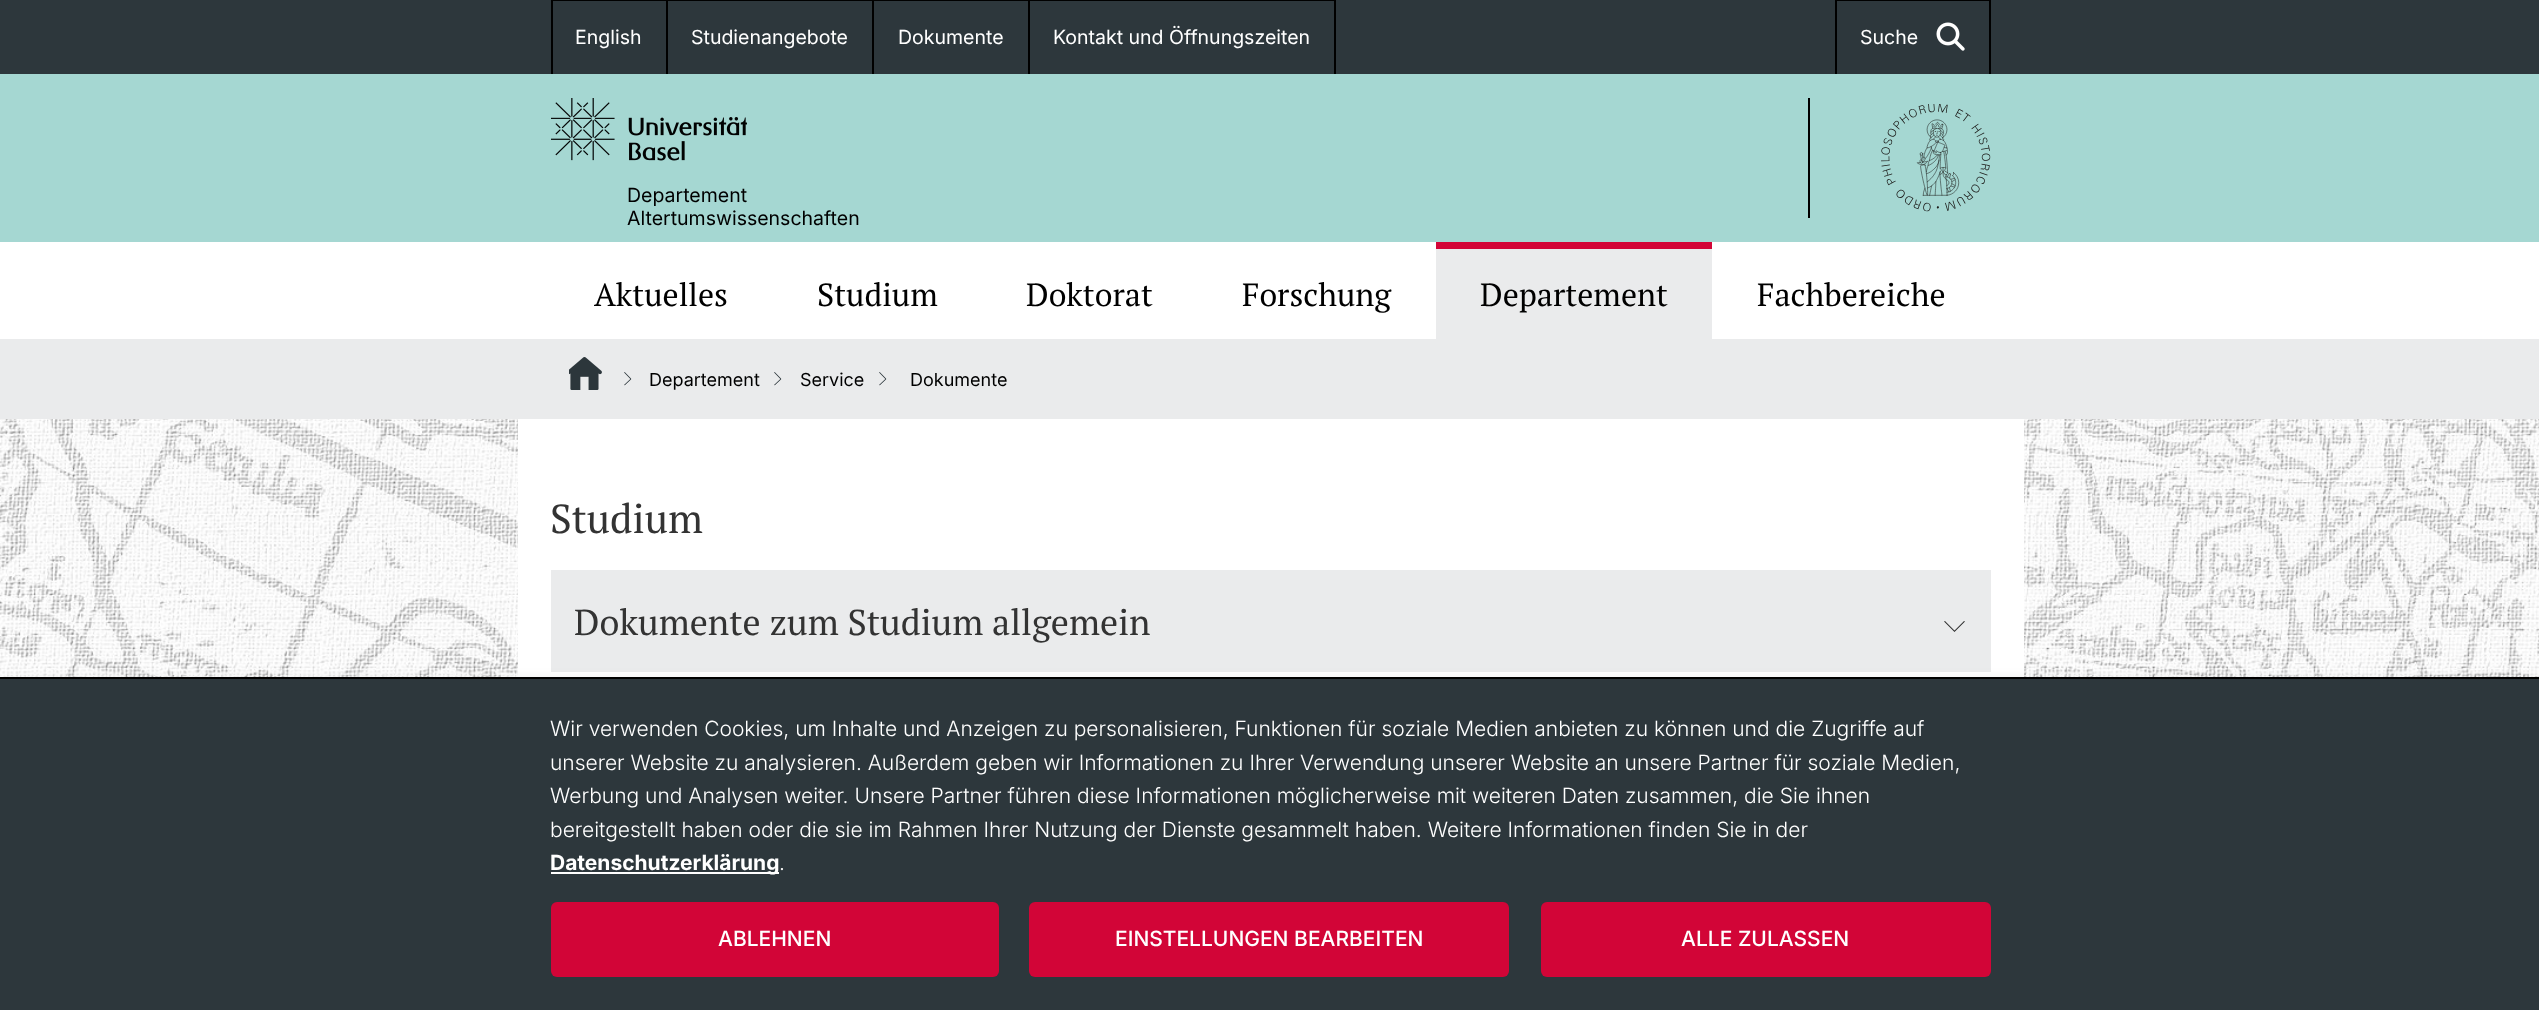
<!DOCTYPE html>
<meta charset="utf-8">
<style>body { margin: 0 } canvas { display: block }</style>
<canvas id="canvas" width="2539" height="1010"></canvas>
<img id="img1" src="images/1.png" hidden>
<img id="img2" src="images/2.png" hidden>
<img id="img3" src="images/3.png" hidden>
<img id="img4" src="images/4.png" hidden>
<img id="img5" src="images/5.png" hidden>
<img id="img6" src="images/6.png" hidden>
<script>
window.onload = function () {
    const canvas = document.getElementById('canvas');
    const context = canvas.getContext('2d');
    context.miterLimit = 4;
    context.fontKerning = 'normal';

    context.fillStyle = 'rgb(255, 255, 255)';
    context.fillRect(0, 0, 2539, 1010);
    context.drawImage(document.getElementById('img1'), 0, 419, 2539, 258);
    context.fillStyle = 'rgb(45, 55, 60)';
    context.fillRect(0, 0, 2539, 74);
    context.fillStyle = 'rgb(0, 0, 0)';
    context.fillRect(551, 0, 322, 1);
    context.fillRect(666, 0, 2, 74);
    context.fillRect(551, 0, 2, 74);
    context.fillRect(872, 0, 2, 74);
    context.fillRect(873, 0, 156, 1);
    context.fillRect(1028, 0, 2, 74);
    context.fillRect(1029, 0, 306, 1);
    context.fillRect(1334, 0, 2, 74);
    context.fillRect(1835, 0, 156, 1);
    context.fillRect(1989, 0, 2, 74);
    context.fillRect(1835, 0, 2, 74);
    context.drawImage(document.getElementById('img2'), 1936, 22, 29, 29);
    context.fillStyle = 'rgb(165, 215, 210)';
    context.fillRect(0, 74, 2539, 168);
    context.drawImage(document.getElementById('img3'), 551, 98, 196, 63);
    context.fillStyle = 'rgb(0, 0, 0)';
    context.fillRect(1808, 98, 2, 120);
    context.drawImage(document.getElementById('img4'), 1881, 104, 110, 108);
    context.fillStyle = 'rgb(234, 235, 236)';
    context.fillRect(1436, 249, 276, 90);
    context.fillStyle = 'rgb(210, 5, 55)';
    context.fillRect(1436, 242, 276, 7);
    context.fillStyle = 'rgb(234, 235, 236)';
    context.fillRect(0, 339, 2539, 80);
    context.drawImage(document.getElementById('img5'), 569, 357, 33, 33);
    context.drawImage(document.getElementById('img6'), 624, 372, 8, 14);
    context.drawImage(document.getElementById('img6'), 774, 372, 8, 14);
    context.drawImage(document.getElementById('img6'), 879, 372, 8, 14);
    context.fillStyle = 'rgb(255, 255, 255)';
    context.fillRect(518, 419, 1506, 258);
    context.fillStyle = 'rgb(234, 235, 236)';
    context.fillRect(551, 570, 1440, 102);
    context.fillStyle = 'rgb(51, 51, 51)';
    context.beginPath();
    context.moveTo(1954.5, 632);
    context.lineTo(1944, 621.5);
    context.lineTo(1945, 621);
    context.lineTo(1954.5, 630.5);
    context.lineTo(1964, 621);
    context.lineTo(1965, 621.5);
    context.closePath();
    context.fill();
    context.fillStyle = 'rgba(0, 0, 0, 0.19)';
    context.filter = 'blur(7.5px)';
    context.beginPath();
    context.rect(8, 684, 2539, 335);
    context.fill();
    context.filter = 'none';
    context.fillStyle = 'rgb(45, 55, 60)';
    context.fillRect(0, 679, 2539, 331);
    context.fillStyle = 'rgb(0, 0, 0)';
    context.fillRect(0, 677, 2539, 2);
    context.fillStyle = 'rgb(255, 255, 255)';
    context.fillRect(551, 872, 228, 2);
    context.fillStyle = 'rgb(210, 5, 55)';
    context.beginPath();
    context.roundRect(551, 902, 448, 75, 6);
    context.fill();
    context.beginPath();
    context.roundRect(1541, 902, 450, 75, 6);
    context.fill();
    context.beginPath();
    context.roundRect(1029, 902, 480, 75, 6);
    context.fill();
    context.font = '19.5px Inter';
    context.fillStyle = 'rgb(255, 255, 255)';
    context.fillText('English', 575, 44);
    context.fillText('Studienangebote', 691, 44);
    context.fillText('Dokumente', 898, 44);
    context.fillText('Kontakt und Öffnungszeiten', 1053, 44);
    context.fillText('Suche', 1860, 44);
    context.fillStyle = 'rgb(0, 0, 0)';
    context.fillText('Departement', 627, 202);
    context.fillText('Altertumswissenschaften', 627, 225);
    context.font = '32px PT Serif';
    context.fillText('Aktuelles', 594, 306);
    context.fillText('Studium', 817, 306);
    context.fillText('Doktorat', 1026, 306);
    context.fillText('Forschung', 1242, 306);
    context.fillText('Departement', 1480, 306);
    context.fillText('Fachbereiche', 1757, 306);
    context.font = '18px Inter';
    context.fillText('Departement', 649, 386);
    context.fillText('Service', 800, 386);
    context.fillText('Dokumente', 910, 386);
    context.font = '40.5px PT Serif';
    context.fillStyle = 'rgb(51, 51, 51)';
    context.fillText('Studium', 550, 533);
    context.font = '36px PT Serif';
    context.fillText('Dokumente zum Studium allgemein', 574, 635);
    context.font = '300 21px Inter';
    context.fillStyle = 'rgb(255, 255, 255)';
    context.fillText('Wir verwenden Cookies, um Inhalte und Anzeigen zu personalisieren, Funktionen für soziale Medien anbieten zu können und die Zugriffe auf', 550, 736);
    context.fillText('unserer Website zu analysieren. Außerdem geben wir Informationen zu Ihrer Verwendung unserer Website an unsere Partner für soziale Medien,', 550, 770);
    context.fillText('Werbung und Analysen weiter. Unsere Partner führen diese Informationen möglicherweise mit weiteren Daten zusammen, die Sie ihnen', 550, 803);
    context.fillText('bereitgestellt haben oder die sie im Rahmen Ihrer Nutzung der Dienste gesammelt haben. Weitere Informationen finden Sie in der', 550, 837);
    context.font = 'bold 21px Inter';
    context.fillText('Datenschutzerklärung', 550, 870);
    context.font = '300 21px Inter';
    context.fillText('.', 779, 870);
    context.font = '500 21px Inter';
    context.fillText('ABLEHNEN', 718, 946);
    context.fillText('ALLE ZULASSEN', 1681, 946);
    context.fillText('EINSTELLUNGEN BEARBEITEN', 1115, 946);
};
</script>
